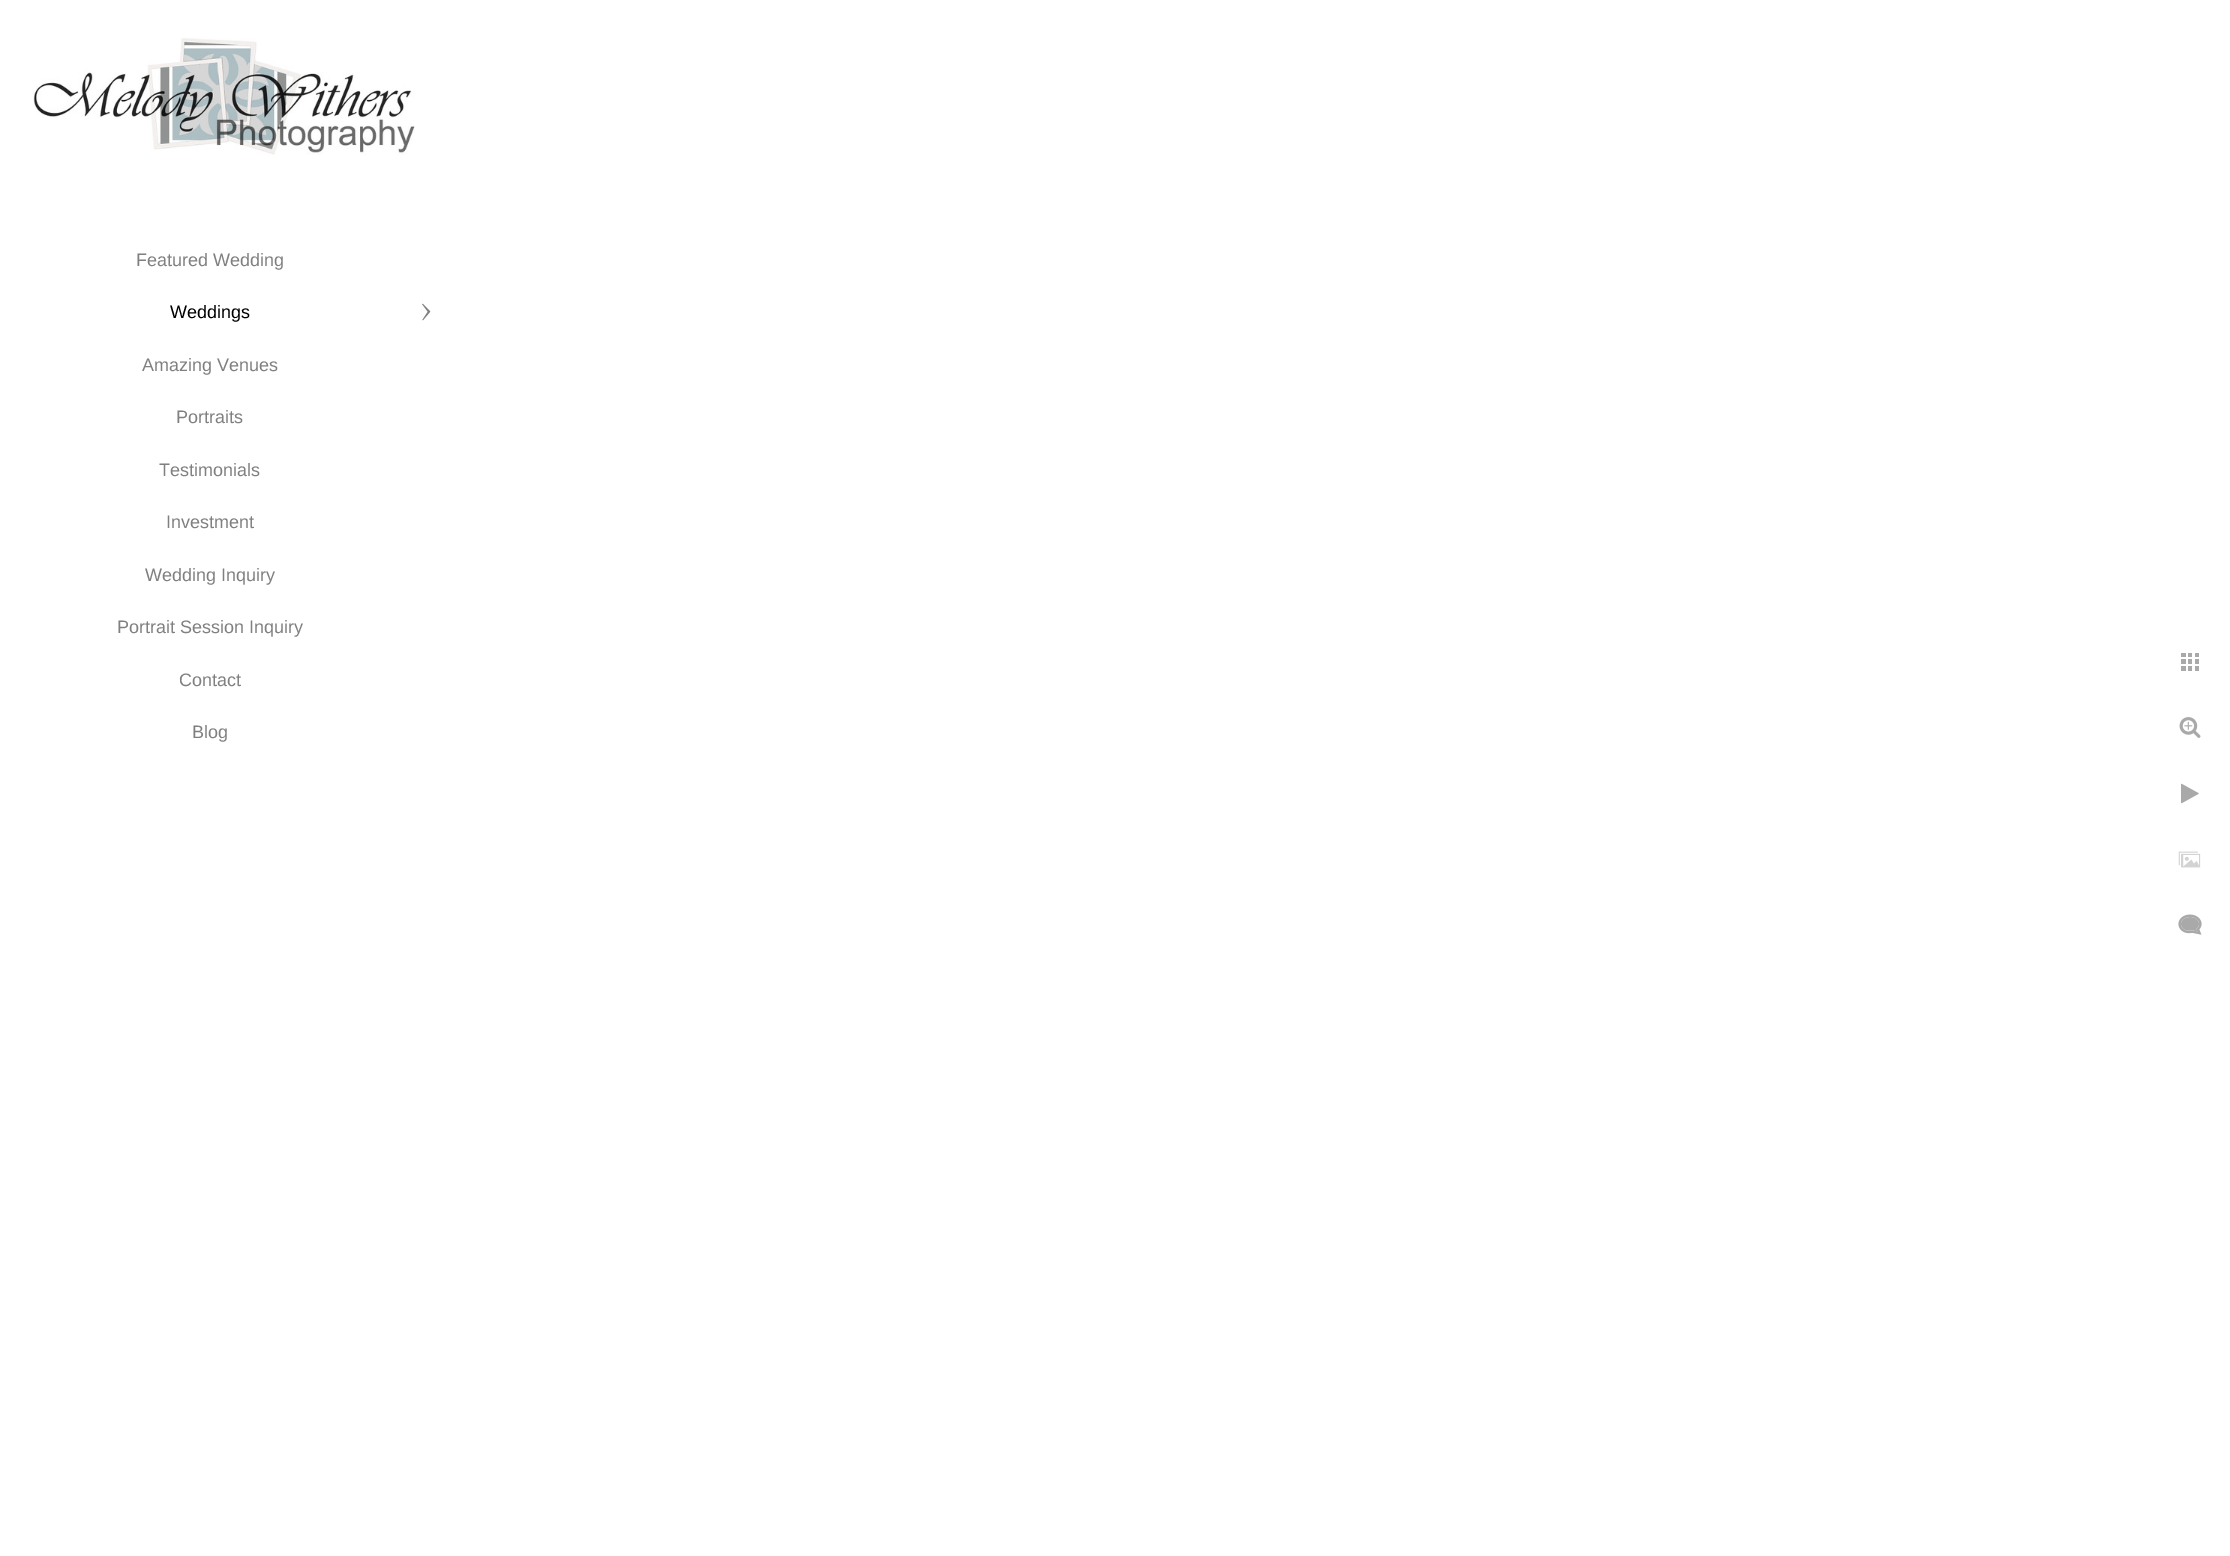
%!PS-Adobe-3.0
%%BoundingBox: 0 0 2230 1556
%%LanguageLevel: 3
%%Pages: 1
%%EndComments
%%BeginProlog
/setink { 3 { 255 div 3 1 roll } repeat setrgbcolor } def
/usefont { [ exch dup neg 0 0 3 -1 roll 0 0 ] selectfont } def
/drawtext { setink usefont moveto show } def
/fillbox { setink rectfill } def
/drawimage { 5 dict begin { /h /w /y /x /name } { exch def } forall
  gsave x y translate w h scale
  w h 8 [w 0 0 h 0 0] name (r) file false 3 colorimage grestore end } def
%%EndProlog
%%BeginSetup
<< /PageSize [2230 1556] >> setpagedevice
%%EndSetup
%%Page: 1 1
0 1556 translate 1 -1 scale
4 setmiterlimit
0 0 2230 1556 255 255 255 fillbox
(assets/img1.rgb) 33 38 382 117 drawimage
(Featured Wedding) 136 266 /LiberationSans-Regular 18 128 128 128 drawtext
(Weddings) 170 318 /LiberationSans-Regular 18 0 0 0 drawtext
(assets/img2.rgb) 422 303 9 18 drawimage
(Amazing Venues) 142 371 /LiberationSans-Regular 18 128 128 128 drawtext
(Portraits) 176 423 /LiberationSans-Regular 18 128 128 128 drawtext
(Testimonials) 159 476 /LiberationSans-Regular 18 128 128 128 drawtext
(Investment) 166 528 /LiberationSans-Regular 18 128 128 128 drawtext
(Wedding Inquiry) 145 581 /LiberationSans-Regular 18 128 128 128 drawtext
(Portrait Session Inquiry) 117 633 /LiberationSans-Regular 18 128 128 128 drawtext
(Contact) 179 686 /LiberationSans-Regular 18 128 128 128 drawtext
(Blog) 192 738 /LiberationSans-Regular 18 128 128 128 drawtext
(assets/img3.rgb) 2181 653 18 18 drawimage
(assets/img4.rgb) 2179 717 22 21 drawimage
(assets/img5.rgb) 2181 783 18 21 drawimage
(assets/img6.rgb) 2178 851 23 17 drawimage
(assets/img7.rgb) 2178 914 24 21 drawimage
showpage
%%EOF
